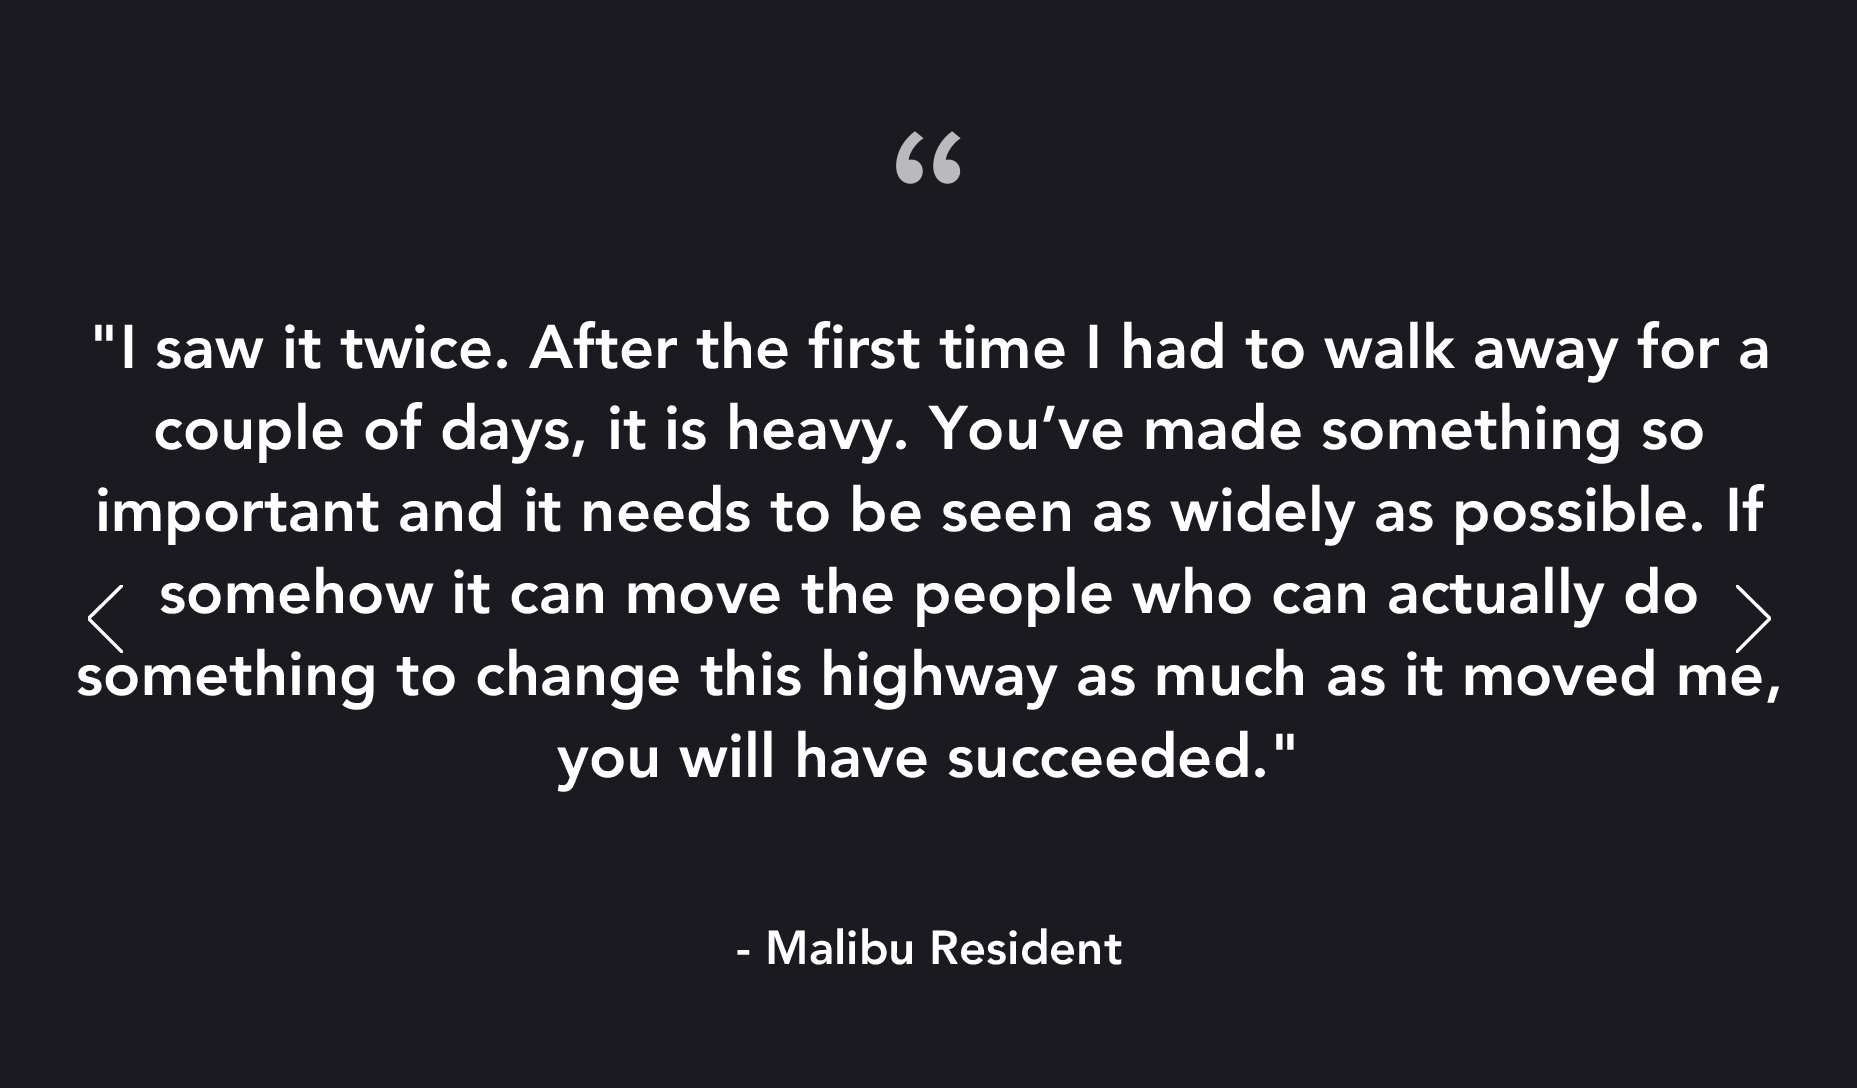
%!PS-Adobe-3.0
%%BoundingBox: 0 0 1857 1088
%%LanguageLevel: 3
%%Pages: 1
%%EndComments
%%BeginProlog
/setink { 3 { 255 div 3 1 roll } repeat setrgbcolor } def
/usefont { [ exch dup neg 0 0 3 -1 roll 0 0 ] selectfont } def
/drawtext { setink usefont moveto show } def
/fillbox { setink rectfill } def
/drawimage { 5 dict begin { /h /w /y /x /name } { exch def } forall
  gsave x y translate w h scale
  w h 8 [w 0 0 h 0 0] name (r) file false 3 colorimage grestore end } def
%%EndProlog
%%BeginSetup
<< /PageSize [1857 1088] >> setpagedevice
%%EndSetup
%%Page: 1 1
0 1088 translate 1 -1 scale
4 setmiterlimit
0 0 1857 1088 27 26 33 fillbox
(assets/img1.rgb) 896 131 65 53 drawimage
("I saw it twice. After the first time I had to walk away for a) 88 368 /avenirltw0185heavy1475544-Black 61.25 255 255 255 drawtext
(couple of days, it is heavy. You’ve made something so) 153 449 /avenirltw0185heavy1475544-Black 61.25 255 255 255 drawtext
(important and it needs to be seen as widely as possible. If) 95 531 /avenirltw0185heavy1475544-Black 61.25 255 255 255 drawtext
(somehow it can move the people who can actually do) 159 613 /avenirltw0185heavy1475544-Black 61.25 255 255 255 drawtext
(something to change this highway as much as it moved me,) 76 695 /avenirltw0185heavy1475544-Black 61.25 255 255 255 drawtext
(you will have succeeded.") 557 777 /avenirltw0185heavy1475544-Black 61.25 255 255 255 drawtext
(- Malibu Resident) 736 964 /avenirltw0185heavy1475544-Black 47.25 255 255 255 drawtext
gsave
88 585 35 68 rectclip
1.7 setlinewidth
121.5 652.5 moveto 87.5 618.5 lineto 121.5 585 lineto 122.5 586 lineto 89.5 618.5 lineto 122.5 651.5 lineto closepath stroke
grestore
gsave
1736 585 35 68 rectclip
1.7 setlinewidth
1737 652.5 moveto 1771 618.5 lineto 1737 585 lineto 1736 586 lineto 1769 618.5 lineto 1736 651.5 lineto closepath stroke
grestore
showpage
%%EOF
